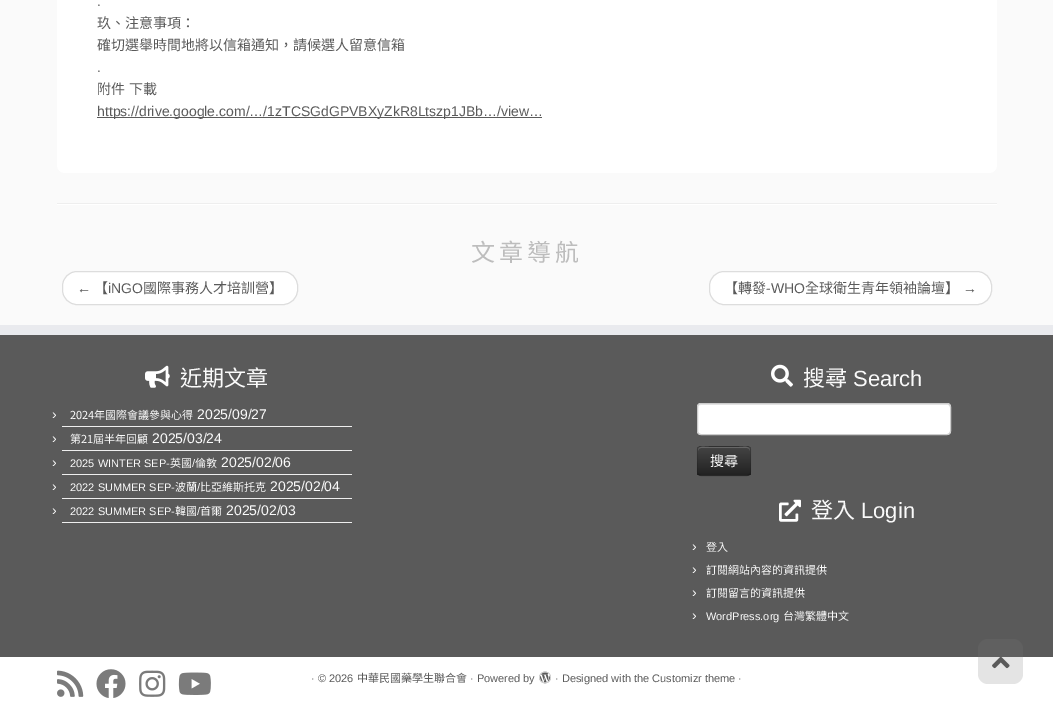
%!PS-Adobe-3.0
%%BoundingBox: 0 0 1053 709
%%LanguageLevel: 3
%%Pages: 1
%%EndComments
%%BeginProlog
/setink { 3 { 255 div 3 1 roll } repeat setrgbcolor } def
/usefont { [ exch dup neg 0 0 3 -1 roll 0 0 ] selectfont } def
/drawtext { setink usefont moveto show } def
/fillbox { setink rectfill } def
/setalpha { dup .setfillconstantalpha .setstrokeconstantalpha } def
/rrect { 5 dict begin { /r /h /w /y /x } { exch def } forall
  x r add y moveto x w add y 2 copy h add r arct x w add y h add x 1 index r arct
  x y h add x y r arct x y 2 copy exch w add exch r arct closepath end } def
/drawimage { 5 dict begin { /h /w /y /x /name } { exch def } forall
  gsave x y translate w h scale
  w h 8 [w 0 0 h 0 0] name (r) file false 3 colorimage grestore end } def
%%EndProlog
%%BeginSetup
<< /PageSize [1053 709] /PageUsesTransparency true >> setpagedevice
%%EndSetup
%%Page: 1 1
0 .pushpdf14devicefilter
0 709 translate 1 -1 scale
4 setmiterlimit
0 0 1053 709 250 250 250 fillbox
255 255 255 setink
57 -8 940 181 8 rrect fill
(.) 97 6 /LiberationSans-Regular 14 90 90 90 drawtext
(玖、注意事項：) 97 28 /NotoSansTC-Regular 14 90 90 90 drawtext
(確切選舉時間地將以信箱通知，請候選人留意信箱) 97 50 /NotoSansTC-Regular 14 90 90 90 drawtext
(.) 97 72 /LiberationSans-Regular 14 90 90 90 drawtext
/NotoSansTC-Regular 14 usefont
97 94 moveto 1 0 32 (附件 下載) widthshow
97 117 445 1 90 90 90 fillbox
(https://drive.google.com/…/1zTCSGdGPVBXyZkR8Ltszp1JBb…/view…) 97 116 /LiberationSans-Regular 14 90 90 90 drawtext
57 203 940 1 238 238 238 fillbox
57 204 940 1 255 255 255 fillbox
/NotoSansTC-Regular 24 usefont
189 189 189 setink
471 261 moveto 4 0 (文章導航) ashow
255 255 255 setink
62.5 271.5 235 33 14.5 rrect gsave fill grestore
221 221 221 setink
stroke
(←) 77 293 /LiberationSans-Regular 14 90 90 90 drawtext
(【) 94 293 /NotoSansTC-Regular 14 90 90 90 drawtext
(iNGO) 108 293 /LiberationSans-Regular 14 90 90 90 drawtext
(國際事務人才培訓營】) 143 293 /NotoSansTC-Regular 14 90 90 90 drawtext
255 255 255 setink
709.5 271.5 282 33 14.5 rrect gsave fill grestore
221 221 221 setink
stroke
(【轉發) 724 293 /NotoSansTC-Regular 14 90 90 90 drawtext
(-WHO) 766 293 /LiberationSans-Regular 14 90 90 90 drawtext
(全球衛生青年領袖論壇】) 805 293 /NotoSansTC-Regular 14 90 90 90 drawtext
(→) 963 293 /LiberationSans-Regular 14 90 90 90 drawtext
0 335 1053 322 90 90 90 fillbox
0 325 1053 10 233 234 238 fillbox
(assets/img1.rgb) 145 365 25 23 drawimage
(近期文章) 180 386 /NotoSansTC-Regular 22 250 250 250 drawtext
62 426 290 1 238 238 238 fillbox
(›) 52 419 /LiberationSans-Regular 14 250 250 250 drawtext
(2024年國際會議參與心得) 70 419 /NotoSansTC-Regular 11 250 250 250 drawtext
(2025/09/27) 197 419 /LiberationSans-Regular 14 250 250 250 drawtext
62 450 290 1 238 238 238 fillbox
(›) 52 443 /LiberationSans-Regular 14 250 250 250 drawtext
(第21屆半年回顧) 70 443 /NotoSansTC-Regular 11 250 250 250 drawtext
(2025/03/24) 152 443 /LiberationSans-Regular 14 250 250 250 drawtext
62 474 290 1 238 238 238 fillbox
(›) 52 467 /LiberationSans-Regular 14 250 250 250 drawtext
(2025 WINTER SEP-) 70 467 /LiberationSans-Regular 11 250 250 250 drawtext
(英國) 170 467 /NotoSansTC-Regular 11 250 250 250 drawtext
(/) 192 467 /LiberationSans-Regular 11 250 250 250 drawtext
(倫敦) 195 467 /NotoSansTC-Regular 11 250 250 250 drawtext
(2025/02/06) 221 467 /LiberationSans-Regular 14 250 250 250 drawtext
62 498 290 1 238 238 238 fillbox
(›) 52 491 /LiberationSans-Regular 14 250 250 250 drawtext
(2022 SUMMER SEP-) 70 491 /LiberationSans-Regular 11 250 250 250 drawtext
(波蘭) 175 491 /NotoSansTC-Regular 11 250 250 250 drawtext
(/) 197 491 /LiberationSans-Regular 11 250 250 250 drawtext
(比亞維斯托克) 200 491 /NotoSansTC-Regular 11 250 250 250 drawtext
(2025/02/04) 270 491 /LiberationSans-Regular 14 250 250 250 drawtext
62 522 290 1 238 238 238 fillbox
(›) 52 515 /LiberationSans-Regular 14 250 250 250 drawtext
(2022 SUMMER SEP-) 70 515 /LiberationSans-Regular 11 250 250 250 drawtext
(韓國) 175 515 /NotoSansTC-Regular 11 250 250 250 drawtext
(/) 197 515 /LiberationSans-Regular 11 250 250 250 drawtext
(首爾) 200 515 /NotoSansTC-Regular 11 250 250 250 drawtext
(2025/02/03) 226 515 /LiberationSans-Regular 14 250 250 250 drawtext
(assets/img2.rgb) 771 364 22 23 drawimage
(搜尋) 803 386 /NotoSansTC-Regular 22 250 250 250 drawtext
(Search) 853 386 /LiberationSans-Regular 22 250 250 250 drawtext
255 255 255 setink
697 403 254 32 4 rrect fill
236 236 236 setink
701 405 moveto 948 405 lineto 950 406 lineto 950 408 lineto 950 406 949 404 947 404 curveto 701 404 lineto 699 404 698 406 698 408 curveto 698 406 699 405 701 405 curveto closepath fill
204 204 204 setink
697.5 403.5 253 31 3.5 rrect stroke
54 54 54 setink
697 446 54 30 4 rrect fill
gsave
697 446 54 30 4 rrect clip newpath
gsave 697 447 moveto 751 447 lineto 751 475 lineto 697 475 lineto closepath clip newpath
<< /ShadingType 2 /ColorSpace /DeviceRGB /Coords [724 447 724 475] /Extend [true true] /Function << /FunctionType 2 /Domain [0 1] /C0 [0.267 0.267 0.267] /C1 [0.133 0.133 0.133] /N 1 >> >> shfill grestore
grestore
105 105 105 setink
701 448 moveto 747 448 lineto 749 448 750 449 750 451 curveto 750 445 744 447 739 447 curveto 709 447 lineto 704 447 698 445 698 451 curveto 698 449 699 448 701 448 curveto closepath fill
0.25 setalpha
0 0 0 setink
749.5 474.5 moveto 749 475 748 475.5 747 475.5 curveto 701 475.5 lineto 700 475.5 699 475 698.5 474.5 curveto stroke
0.1 setalpha
698.5 474.5 moveto 696.5 472.5 697.5 464 697.5 461 curveto 697.5 446.5 694.5 446.5 708.5 446.5 curveto 739.5 446.5 lineto 753.5 446.5 750.5 446.5 750.5 461 curveto 750.5 464 751.5 472.5 749.5 474.5 curveto stroke
1 setalpha
(搜尋) 710 466 /NotoSansCJKTC-Regular 14 250 250 250 drawtext
(assets/img3.rgb) 779 499 22 23 drawimage
(登入) 811 518 /NotoSansTC-Regular 22 250 250 250 drawtext
(Login) 861 518 /LiberationSans-Regular 22 250 250 250 drawtext
(›) 692 551 /LiberationSans-Regular 14 250 250 250 drawtext
(登入) 706 551 /NotoSansTC-Regular 11 250 250 250 drawtext
(›) 692 574 /LiberationSans-Regular 14 250 250 250 drawtext
(訂閱網站內容的資訊提供) 706 574 /NotoSansTC-Regular 11 250 250 250 drawtext
(›) 692 597 /LiberationSans-Regular 14 250 250 250 drawtext
(訂閱留言的資訊提供) 706 597 /NotoSansTC-Regular 11 250 250 250 drawtext
(›) 692 620 /LiberationSans-Regular 14 250 250 250 drawtext
(WordPress.org) 706 620 /LiberationSans-Regular 11 250 250 250 drawtext
(台灣繁體中文) 783 620 /NotoSansTC-Regular 11 250 250 250 drawtext
0 657 1053 52 255 255 255 fillbox
(assets/img4.rgb) 57 670 27 27 drawimage
(assets/img5.rgb) 96 669 30 29 drawimage
(assets/img6.rgb) 139 670 27 27 drawimage
(assets/img7.rgb) 178 672 33 23 drawimage
(· © 2026) 311 682 /LiberationSans-Regular 11 90 90 90 drawtext
(中華民國藥學生聯合會) 357 682 /NotoSansTC-Regular 11 90 90 90 drawtext
(· Powered by) 470 682 /LiberationSans-Regular 11 90 90 90 drawtext
(assets/img8.rgb) 539 671 12 13 drawimage
(· Designed with the Customizr theme ·) 555 682 /LiberationSans-Regular 11 90 90 90 drawtext
0.2 setalpha
119 119 119 setink
978 639 45 45 10 rrect fill
1 setalpha
(assets/img9.rgb) 992 657 18 12 drawimage
.poppdf14devicefilter showpage
%%EOF
